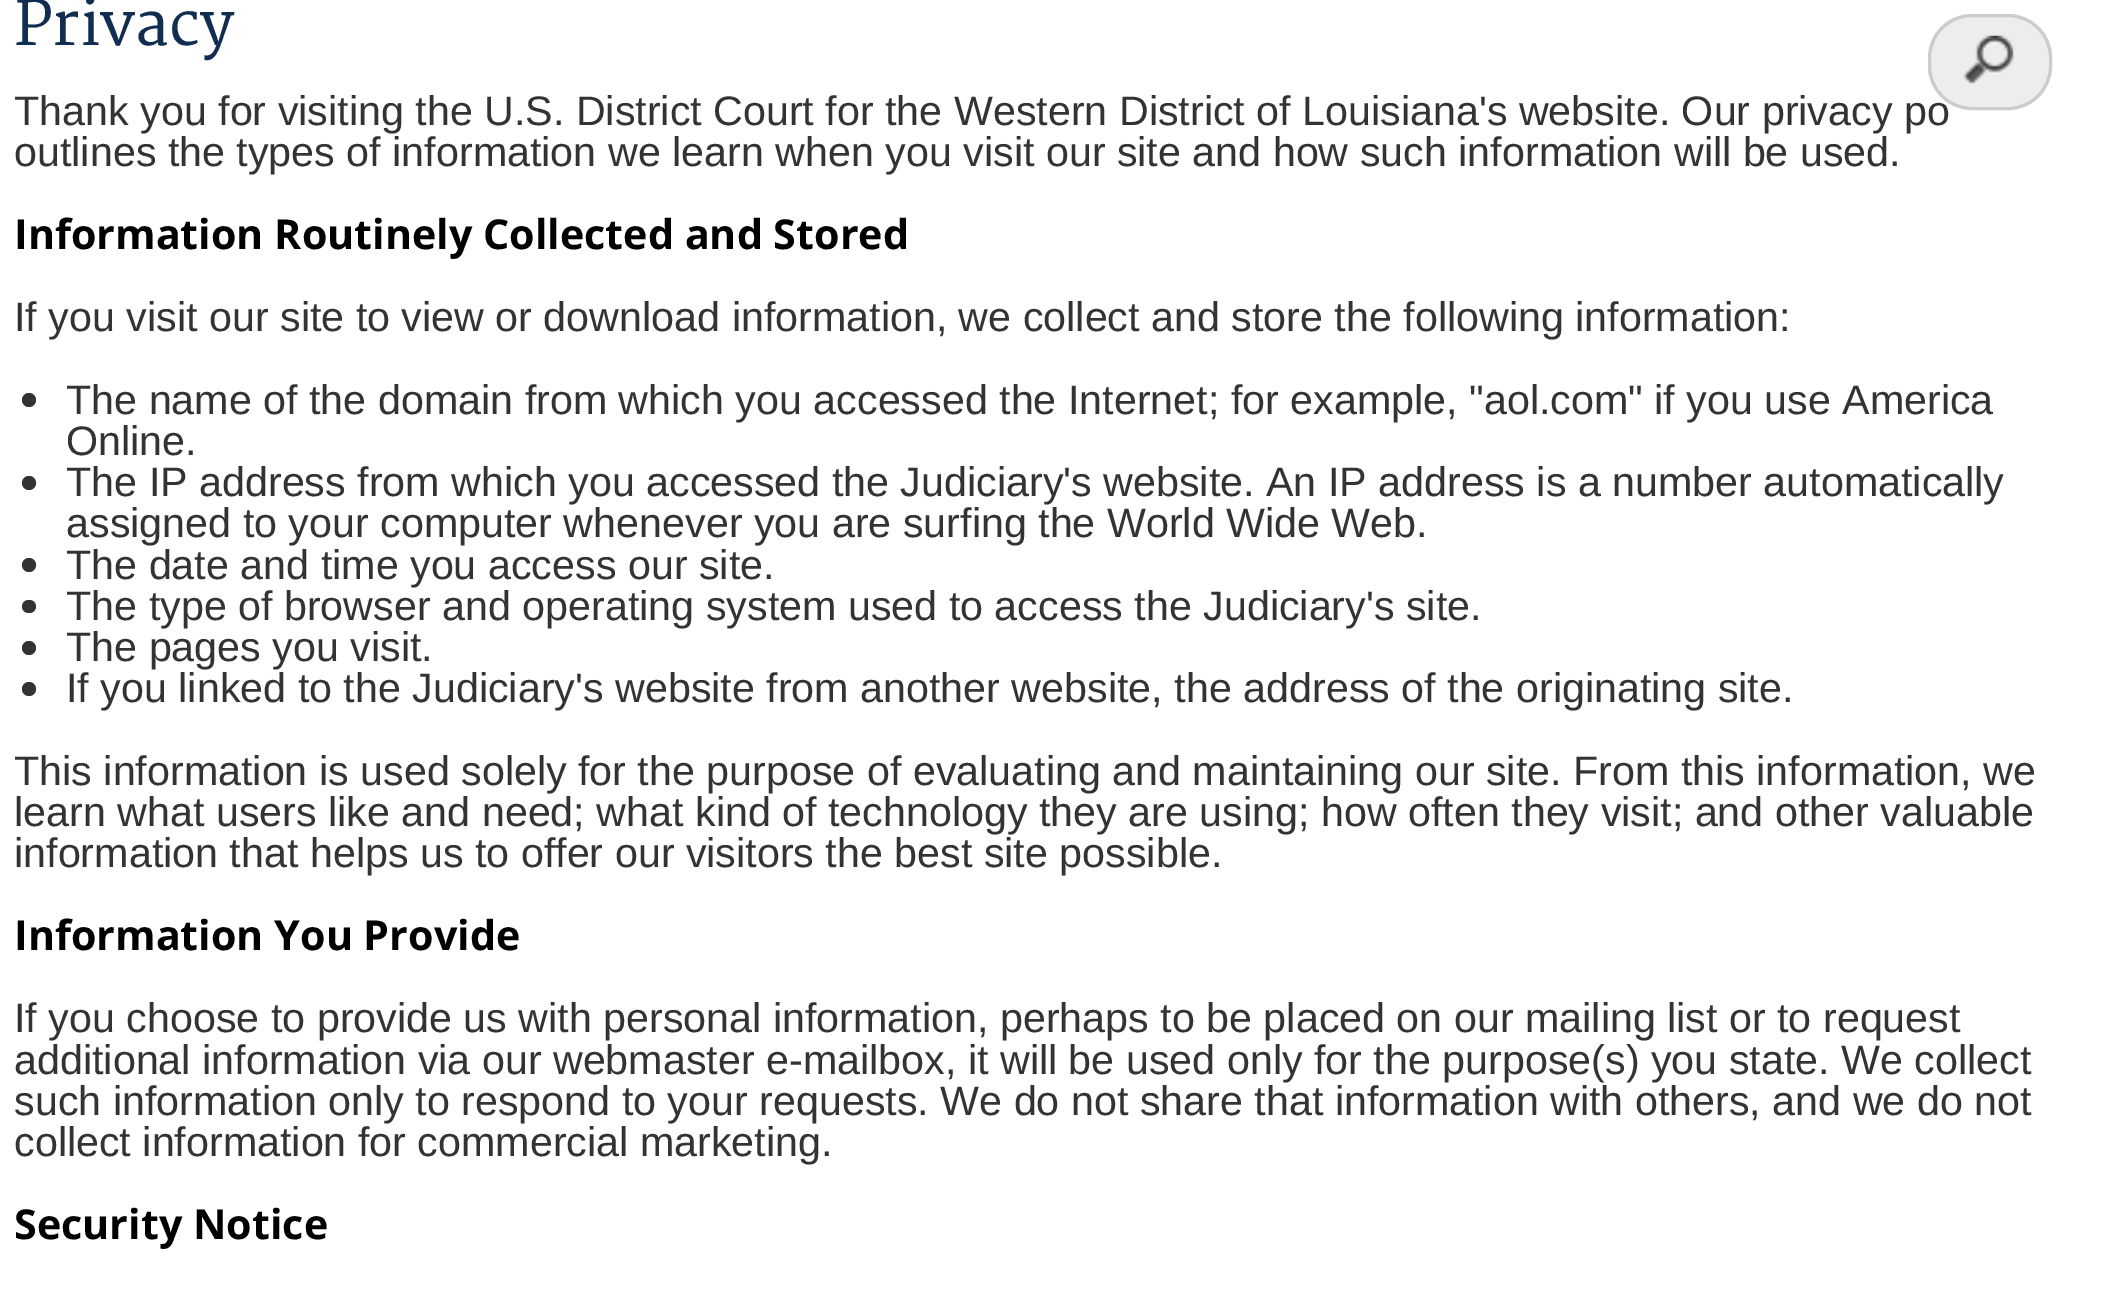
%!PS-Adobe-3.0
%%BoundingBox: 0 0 2106 1305
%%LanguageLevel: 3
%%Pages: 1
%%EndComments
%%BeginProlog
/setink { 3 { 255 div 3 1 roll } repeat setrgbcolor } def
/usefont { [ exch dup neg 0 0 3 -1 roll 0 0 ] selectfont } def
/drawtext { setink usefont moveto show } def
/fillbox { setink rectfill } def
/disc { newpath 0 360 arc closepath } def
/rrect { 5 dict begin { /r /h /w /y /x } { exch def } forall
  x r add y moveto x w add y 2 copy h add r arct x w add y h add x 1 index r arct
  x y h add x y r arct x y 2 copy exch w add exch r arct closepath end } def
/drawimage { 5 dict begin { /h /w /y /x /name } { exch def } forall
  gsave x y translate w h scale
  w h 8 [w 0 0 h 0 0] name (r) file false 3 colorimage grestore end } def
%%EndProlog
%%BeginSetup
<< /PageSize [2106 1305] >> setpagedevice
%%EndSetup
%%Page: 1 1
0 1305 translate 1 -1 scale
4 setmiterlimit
0 0 2106 1305 255 255 255 fillbox
(Privacy) 14 45 /Merriweather-Regular 60.5 17 46 81 drawtext
(Thank you for visiting the U.S. District Court for the Western District of Louisiana's website. Our privacy po) 14 125 /LiberationSans-Regular 41.25 51 51 51 drawtext
(outlines the types of information we learn when you visit our site and how such information will be used.) 14 166 /LiberationSans-Regular 41.25 51 51 51 drawtext
(Information Routinely Collected and Stored) 14 249 /OpenSans-Bold 41.25 0 0 0 drawtext
(If you visit our site to view or download information, we collect and store the following information:) 14 331 /LiberationSans-Regular 41.25 51 51 51 drawtext
29 400 7 disc fill
(The name of the domain from which you accessed the Internet; for example, "aol.com" if you use America) 66 414 /LiberationSans-Regular 41.25 51 51 51 drawtext
(Online.) 66 455 /LiberationSans-Regular 41.25 51 51 51 drawtext
29 483 7 disc fill
(The IP address from which you accessed the Judiciary's website. An IP address is a number automatically) 66 496 /LiberationSans-Regular 41.25 51 51 51 drawtext
(assigned to your computer whenever you are surfing the World Wide Web.) 66 537 /LiberationSans-Regular 41.25 51 51 51 drawtext
29 565 7 disc fill
(The date and time you access our site.) 66 579 /LiberationSans-Regular 41.25 51 51 51 drawtext
22 600 14 13 6.5 rrect fill
(The type of browser and operating system used to access the Judiciary's site.) 66 620 /LiberationSans-Regular 41.25 51 51 51 drawtext
29 648 7 disc fill
(The pages you visit.) 66 661 /LiberationSans-Regular 41.25 51 51 51 drawtext
29 689 7 disc fill
(If you linked to the Judiciary's website from another website, the address of the originating site.) 66 702 /LiberationSans-Regular 41.25 51 51 51 drawtext
(This information is used solely for the purpose of evaluating and maintaining our site. From this information, we) 14 785 /LiberationSans-Regular 41.25 51 51 51 drawtext
(learn what users like and need; what kind of technology they are using; how often they visit; and other valuable) 14 826 /LiberationSans-Regular 41.25 51 51 51 drawtext
(information that helps us to offer our visitors the best site possible.) 14 867 /LiberationSans-Regular 41.25 51 51 51 drawtext
(Information You Provide) 14 950 /OpenSans-Bold 41.25 0 0 0 drawtext
(If you choose to provide us with personal information, perhaps to be placed on our mailing list or to request) 14 1032 /LiberationSans-Regular 41.25 51 51 51 drawtext
(additional information via our webmaster e-mailbox, it will be used only for the purpose\(s\) you state. We collect) 14 1074 /LiberationSans-Regular 41.25 51 51 51 drawtext
(such information only to respond to your requests. We do not share that information with others, and we do not) 14 1115 /LiberationSans-Regular 41.25 51 51 51 drawtext
(collect information for commercial marketing.) 14 1156 /LiberationSans-Regular 41.25 51 51 51 drawtext
(Security Notice) 14 1239 /OpenSans-Bold 41.25 0 0 0 drawtext
237 237 237 setink
1928 14 124 96 44 rrect fill
(assets/img1.rgb) 1963 35 51 50 drawimage
204 204 204 setink
3 setlinewidth
1929.5 15.5 121 93 42.5 rrect stroke
showpage
%%EOF
